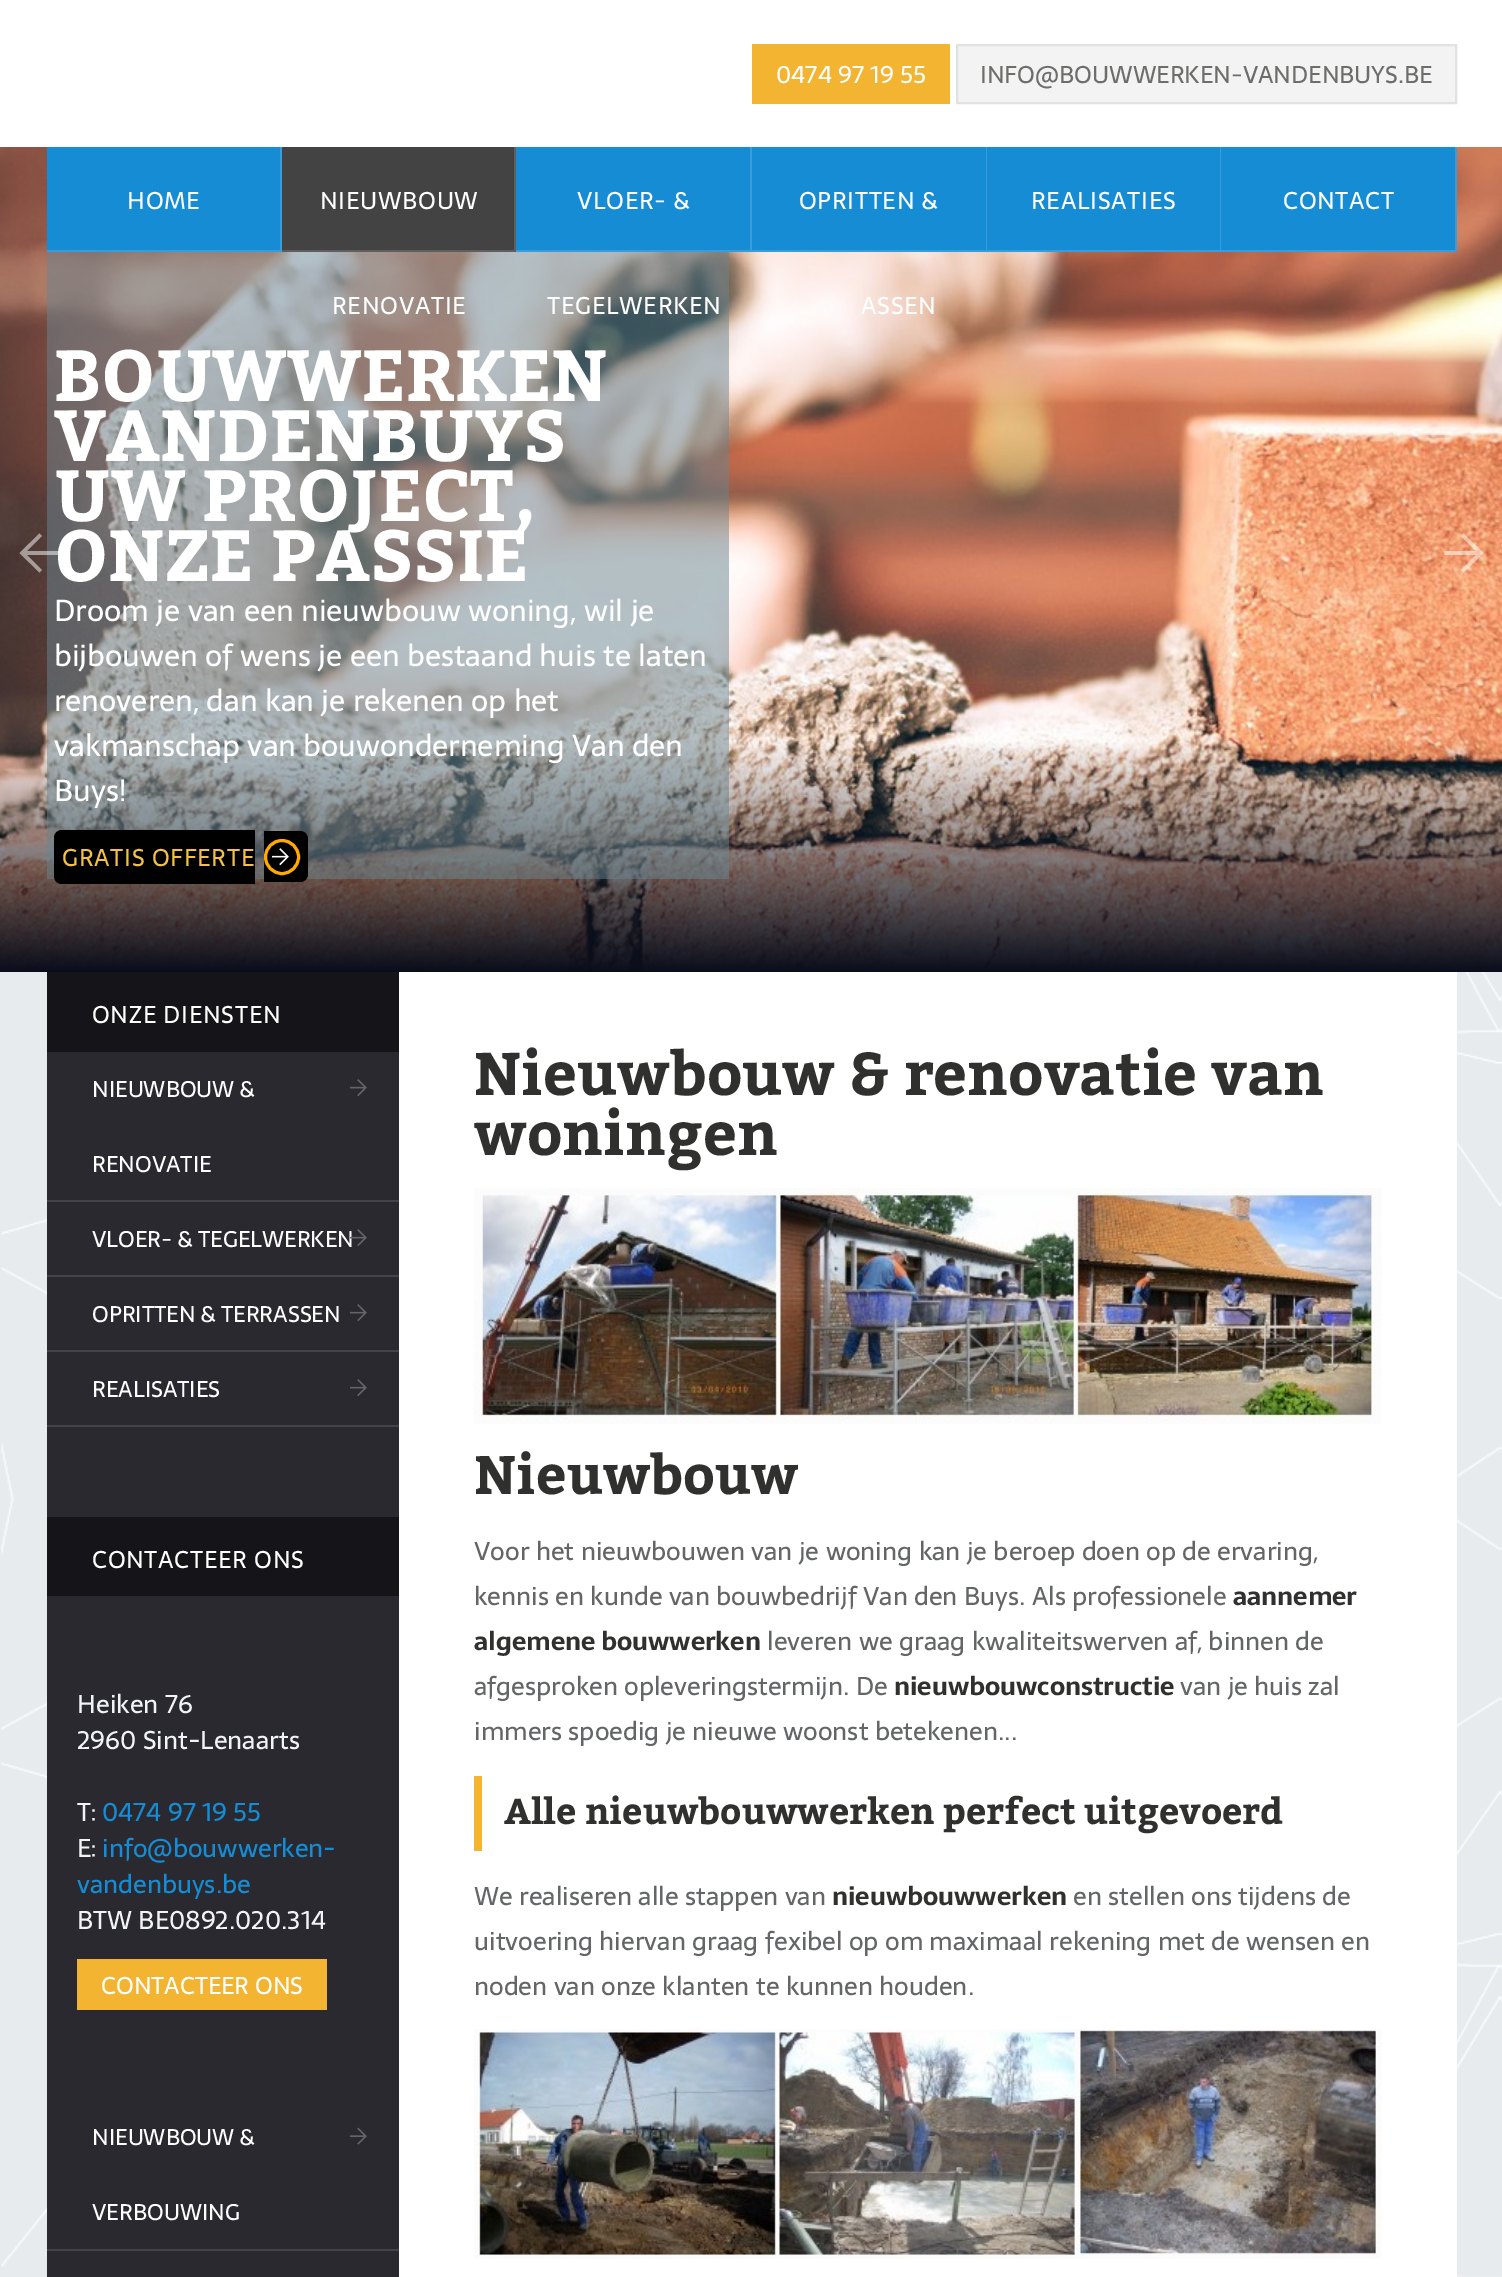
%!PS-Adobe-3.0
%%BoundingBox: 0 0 1502 2277
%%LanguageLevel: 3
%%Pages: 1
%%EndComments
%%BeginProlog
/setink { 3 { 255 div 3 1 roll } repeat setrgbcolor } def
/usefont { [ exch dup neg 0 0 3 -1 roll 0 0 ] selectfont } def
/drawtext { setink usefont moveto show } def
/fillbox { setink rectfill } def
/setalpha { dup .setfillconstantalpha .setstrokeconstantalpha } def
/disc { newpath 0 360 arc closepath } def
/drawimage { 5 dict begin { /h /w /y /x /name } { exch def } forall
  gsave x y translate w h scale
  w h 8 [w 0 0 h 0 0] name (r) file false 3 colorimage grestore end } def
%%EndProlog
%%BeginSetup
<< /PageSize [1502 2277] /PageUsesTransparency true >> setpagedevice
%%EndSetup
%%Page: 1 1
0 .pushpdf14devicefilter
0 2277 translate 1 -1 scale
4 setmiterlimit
0 0 1502 2277 232 235 237 fillbox
(assets/img1.rgb) 1 972 1501 1305 drawimage
0 0 1502 147 255 255 255 fillbox
752 44 198 60 242 180 49 fillbox
(0474 97 19 55) 776 83 /Sarala-Regular 24 255 255 255 drawtext
243 243 243 setink
957 45 moveto 1456 45 lineto 1456 103 lineto 957 103 lineto closepath gsave fill grestore
225 226 226 setink
2 setlinewidth
stroke
(INFO@BOUWWERKEN-VANDENBUYS.BE) 980 83 /Sarala-Regular 24 110 109 108 drawtext
(assets/img2.rgb) 0 147 1502 825 drawimage
47 147 1408 103 21 140 212 fillbox
gsave
47 147 235 105 rectclip
56 157 218 setink
-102 -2 moveto 430 -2 lineto 430 400 lineto -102 400 lineto closepath 45 146 moveto 280 146 lineto 280 250 lineto 45 250 lineto closepath eofill
grestore
255 255 255 setink
127 209 moveto 0.75 0 (HOME) ashow
282 147 232 103 67 67 67 fillbox
gsave
282 147 234 105 rectclip
95 95 95 setink
134 -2 moveto 664 -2 lineto 664 400 lineto 134 400 lineto closepath 280 146 moveto 514 146 lineto 514 250 lineto 280 250 lineto closepath eofill
grestore
255 255 255 setink
320 209 moveto 0.75 0 (NIEUWBOUW) ashow
0.5 setalpha
47 252 682 627 104 133 144 fillbox
1 setalpha
255 255 255 setink
332 314 moveto 0.75 0 (RENOVATIE) ashow
gsave
516 147 236 105 rectclip
56 157 218 setink
368 -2 moveto 900 -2 lineto 900 400 lineto 368 400 lineto closepath 514 146 moveto 750 146 lineto 750 250 lineto 514 250 lineto closepath eofill
grestore
577 209 moveto 0.75 0 (VLOER- &) ashow
547 314 moveto 0.75 0 (TEGELWERKEN) ashow
gsave
752 147 235 105 rectclip
56 157 218 setink
603 -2 moveto 1136 -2 lineto 1136 400 lineto 603 400 lineto closepath 750 146 moveto 986 146 lineto 986 250 lineto 750 250 lineto closepath eofill
grestore
799 209 moveto 0.75 0 (OPRITTEN &) ashow
861 314 moveto 0.75 0 (ASSEN) ashow
gsave
987 147 234 105 rectclip
56 157 218 setink
838 -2 moveto 1370 -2 lineto 1370 400 lineto 838 400 lineto closepath 986 146 moveto 1220 146 lineto 1220 250 lineto 986 250 lineto closepath eofill
grestore
1031 209 moveto 0.75 0 (REALISATIES) ashow
gsave
1221 147 236 105 rectclip
56 157 218 setink
1072 -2 moveto 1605 -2 lineto 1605 400 lineto 1072 400 lineto closepath 1220 146 moveto 1455 146 lineto 1455 250 lineto 1220 250 lineto closepath eofill
grestore
1283 209 moveto 0.75 0 (CONTACT) ashow
(BOUWWERKEN) 54 401 /Kadwa-Bold 72 255 255 255 drawtext
(VANDENBUYS) 54 461 /Kadwa-Bold 72 255 255 255 drawtext
(UW PROJECT,) 54 521 /Kadwa-Bold 72 255 255 255 drawtext
(ONZE PASSIE) 54 581 /Kadwa-Bold 72 255 255 255 drawtext
(Droom je van een nieuwbouw woning, wil je) 54 621 /Sarala-Regular 30 255 255 255 drawtext
(bijbouwen of wens je een bestaand huis te laten) 54 666 /Sarala-Regular 30 255 255 255 drawtext
(renoveren, dan kan je rekenen op het) 54 711 /Sarala-Regular 30 255 255 255 drawtext
(vakmanschap van bouwonderneming Van den) 54 756 /Sarala-Regular 30 255 255 255 drawtext
(Buys!) 54 801 /Sarala-Regular 30 255 255 255 drawtext
0 0 0 setink
62 830 moveto 255 830 lineto 255 884 lineto 62 884 lineto 57.5 884 54 880.5 54 876 curveto 54 838 lineto 54 833.5 57.5 830 62 830 curveto closepath fill
264 831 moveto 300 831 lineto 304.5 831 308 834.5 308 839 curveto 308 874 lineto 308 878.5 304.5 882 300 882 curveto 264 882 lineto closepath fill
/Sarala-Regular 24 usefont
242 192 71 setink
62 866 moveto 0.75 0 (GRATIS OFFERTE) ashow
255 170 0 setink
3 setlinewidth
282 857 16.5 disc stroke
(assets/img3.rgb) 271 848 18 18 drawimage
0.5 setalpha
255 255 255 setink
58.5 551 moveto 58.5 555 lineto 27 555 lineto 42 570 lineto 39.5 572.5 lineto 19.5 553 lineto 39.5 533.5 lineto 42 536 lineto 27 551 lineto closepath fill
1463.5 533.5 moveto 1483.5 553 lineto 1463.5 572.5 lineto 1461 570 lineto 1476 555 lineto 1444.5 555 lineto 1444.5 551 lineto 1476 551 lineto 1461 536 lineto closepath fill
1 setalpha
47 1052 352 1225 41 41 47 fillbox
47 972 352 80 21 21 25 fillbox
255 255 255 setink
92 1023 moveto 0.75 0 (ONZE DIENSTEN) ashow
47 1200 352 2 67 67 72 fillbox
(NIEUWBOUW &) 92 1097 /Sarala-Regular 22.5 255 255 255 drawtext
(assets/img4.rgb) 350 1079 17 17 drawimage
(RENOVATIE) 92 1172 /Sarala-Regular 22.5 255 255 255 drawtext
47 1275 352 2 67 67 72 fillbox
(VLOER- & TEGELWERKEN) 92 1247 /Sarala-Regular 22.5 255 255 255 drawtext
(assets/img5.rgb) 350 1229 17 17 drawimage
47 1350 352 2 67 67 72 fillbox
(OPRITTEN & TERRASSEN) 92 1322 /Sarala-Regular 22.5 255 255 255 drawtext
(assets/img4.rgb) 350 1304 17 17 drawimage
47 1425 352 2 67 67 72 fillbox
(REALISATIES) 92 1397 /Sarala-Regular 22.5 255 255 255 drawtext
(assets/img4.rgb) 350 1379 17 17 drawimage
47 1517 352 79 21 21 25 fillbox
/Sarala-Regular 24 usefont
255 255 255 setink
92 1568 moveto 0.75 0 (CONTACTEER ONS) ashow
(Heiken 76) 77 1713 /Sarala-Regular 25.5 241 243 245 drawtext
(2960 Sint-Lenaarts) 77 1749 /Sarala-Regular 25.5 241 243 245 drawtext
(T:) 77 1821 /Sarala-Regular 25.5 241 243 245 drawtext
(0474 97 19 55) 102 1821 /Sarala-Regular 25.5 21 140 212 drawtext
(E:) 77 1857 /Sarala-Regular 25.5 241 243 245 drawtext
(info@bouwwerken-) 102 1857 /Sarala-Regular 25.5 21 140 212 drawtext
(vandenbuys.be) 77 1893 /Sarala-Regular 25.5 21 140 212 drawtext
(BTW BE0892.020.314) 77 1929 /Sarala-Regular 25.5 241 243 245 drawtext
77 1959 250 51 242 180 49 fillbox
(CONTACTEER ONS) 101 1994 /Sarala-Regular 24 255 255 255 drawtext
47 2249 352 2 67 67 72 fillbox
(NIEUWBOUW &) 92 2145 /Sarala-Regular 22.5 255 255 255 drawtext
(assets/img6.rgb) 350 2127 17 18 drawimage
(VERBOUWING) 92 2220 /Sarala-Regular 22.5 255 255 255 drawtext
399 972 1058 1305 255 255 255 fillbox
(Nieuwbouw & renovatie van) 474 1095 /Kadwa-Bold 60 48 48 47 drawtext
(woningen) 474 1155 /Kadwa-Bold 60 48 48 47 drawtext
(assets/img7.rgb) 474 1188 908 236 drawimage
(Nieuwbouw) 474 1494 /Kadwa-Bold 54 48 48 47 drawtext
(Voor het nieuwbouwen van je woning kan je beroep doen op de ervaring,) 474 1560 /Sarala-Regular 25.5 100 101 102 drawtext
(kennis en kunde van bouwbedrijf Van den Buys. Als professionele) 474 1605 /Sarala-Regular 25.5 100 101 102 drawtext
(aannemer) 1233 1605 /Sarala-Bold 25.5 48 48 47 drawtext
(algemene bouwwerken) 474 1650 /Sarala-Bold 25.5 48 48 47 drawtext
(leveren we graag kwaliteitswerven af, binnen de) 767 1650 /Sarala-Regular 25.5 100 101 102 drawtext
(afgesproken opleveringstermijn. De) 474 1695 /Sarala-Regular 25.5 100 101 102 drawtext
(nieuwbouwconstructie) 894 1695 /Sarala-Bold 25.5 48 48 47 drawtext
(van je huis zal) 1180 1695 /Sarala-Regular 25.5 100 101 102 drawtext
(immers spoedig je nieuwe woonst betekenen...) 474 1740 /Sarala-Regular 25.5 100 101 102 drawtext
474 1776 8 75 242 180 49 fillbox
(Alle nieuwbouwwerken perfect uitgevoerd) 504 1824 /Kadwa-Bold 36 48 48 47 drawtext
(We realiseren alle stappen van) 474 1905 /Sarala-Regular 25.5 100 101 102 drawtext
(nieuwbouwwerken) 832 1905 /Sarala-Bold 25.5 48 48 47 drawtext
(en stellen ons tijdens de) 1073 1905 /Sarala-Regular 25.5 100 101 102 drawtext
(uitvoering hiervan graag fexibel op om maximaal rekening met de wensen en) 474 1950 /Sarala-Regular 25.5 100 101 102 drawtext
(noden van onze klanten te kunnen houden.) 474 1995 /Sarala-Regular 25.5 100 101 102 drawtext
(assets/img8.rgb) 474 2029 908 230 drawimage
.poppdf14devicefilter showpage
%%EOF
